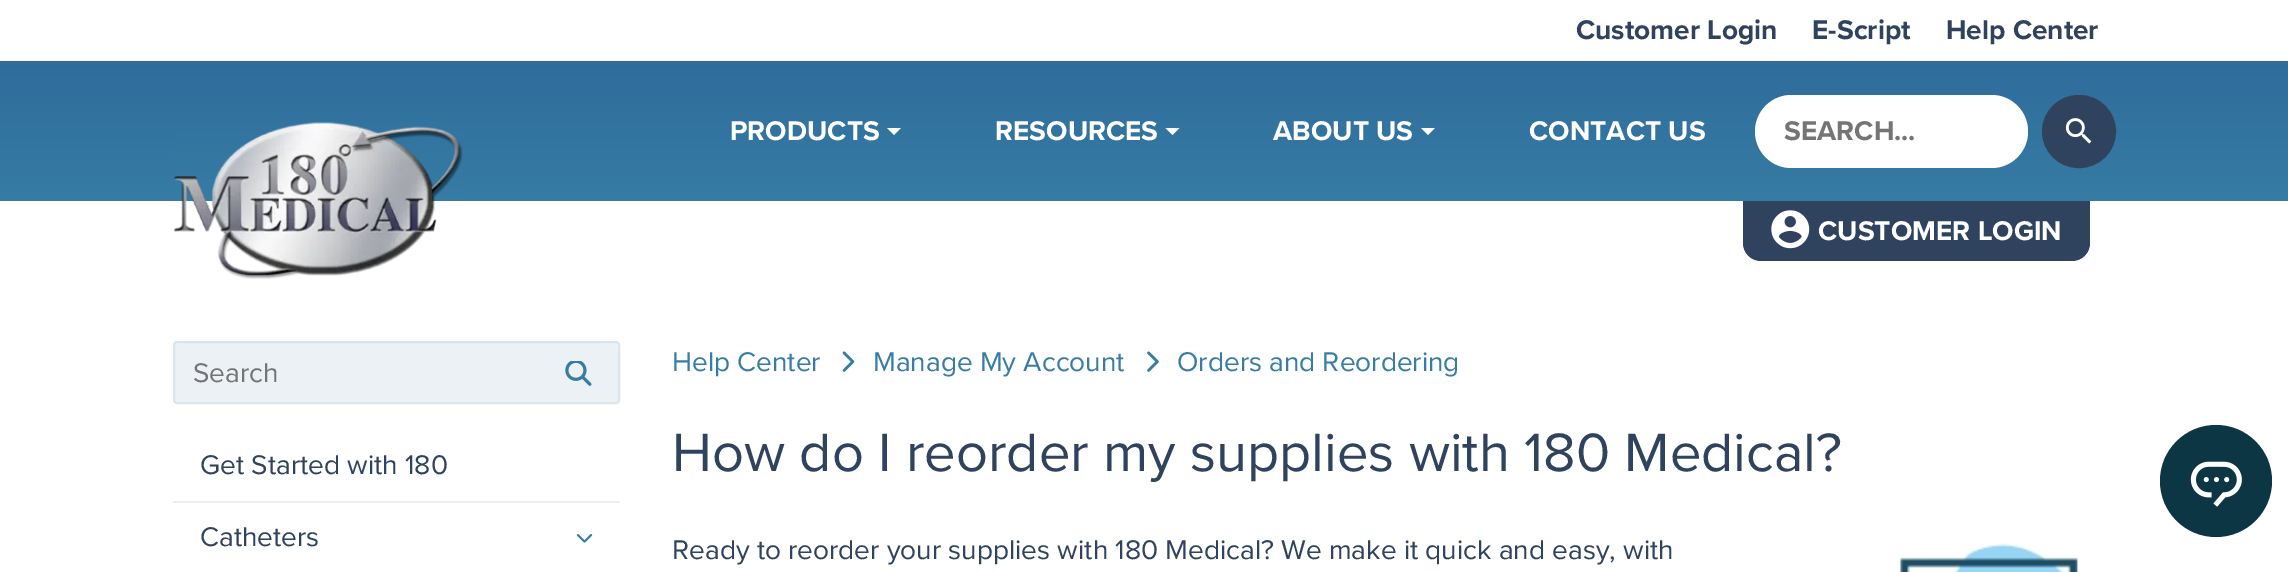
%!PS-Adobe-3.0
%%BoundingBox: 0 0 2288 572
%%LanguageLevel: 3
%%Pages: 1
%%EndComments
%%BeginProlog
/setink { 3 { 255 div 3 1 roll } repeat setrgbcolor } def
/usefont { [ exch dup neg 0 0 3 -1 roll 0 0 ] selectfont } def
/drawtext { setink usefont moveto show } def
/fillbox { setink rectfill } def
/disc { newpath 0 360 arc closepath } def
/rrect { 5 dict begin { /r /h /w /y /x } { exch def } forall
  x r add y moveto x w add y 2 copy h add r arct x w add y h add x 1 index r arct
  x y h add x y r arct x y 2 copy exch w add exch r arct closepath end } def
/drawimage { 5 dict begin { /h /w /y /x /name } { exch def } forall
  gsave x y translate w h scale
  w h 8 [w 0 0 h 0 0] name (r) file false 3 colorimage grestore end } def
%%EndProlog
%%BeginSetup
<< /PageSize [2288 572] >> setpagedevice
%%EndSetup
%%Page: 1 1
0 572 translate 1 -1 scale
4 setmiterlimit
0 0 2288 572 255 255 255 fillbox
(Customer Login) 1576 39 /ProximaNova-Bold 28 48 67 94 drawtext
(E-Script) 1812 39 /ProximaNova-Bold 28 48 67 94 drawtext
(Help Center) 1946 39 /ProximaNova-Bold 28 48 67 94 drawtext
gsave 0 61 moveto 2288 61 lineto 2288 201 lineto 0 201 lineto closepath clip newpath
<< /ShadingType 2 /ColorSpace /DeviceRGB /Coords [1145 201 1145 61] /Extend [true true] /Function << /FunctionType 2 /Domain [0 1] /C0 [0.212 0.486 0.643] /C1 [0.184 0.424 0.612] /N 1 >> >> shfill grestore
(assets/img1.rgb) 174 122 289 157 drawimage
(PRODUCTS) 730 140 /ProximaNova-Bold 28 255 255 255 drawtext
887 128 moveto 901 128 lineto 894 135 lineto closepath fill
(RESOURCES) 995 140 /ProximaNova-Bold 28 255 255 255 drawtext
1165.5 128 moveto 1179.5 128 lineto 1172.5 135 lineto closepath fill
(ABOUT US) 1273 140 /ProximaNova-Bold 28 255 255 255 drawtext
1421 128 moveto 1435 128 lineto 1428 135 lineto closepath fill
(CONTACT US) 1529 140 /ProximaNova-Bold 28 255 255 255 drawtext
1755 95 273 73 36.5 rrect fill
(SEARCH...) 1784 140 /ProximaNova-Bold 28 117 117 117 drawtext
48 67 94 setink
2043 96 72 71 35.5 rrect gsave fill grestore
2 setlinewidth
stroke
(assets/img2.rgb) 2065 118 27 26 drawimage
1743 201 moveto 2090 201 lineto 2090 243 lineto 2090 253 2082 261 2072 261 curveto 1761 261 lineto 1751 261 1743 253 1743 243 curveto closepath fill
(assets/img3.rgb) 1771 210 39 39 drawimage
(CUSTOMER LOGIN) 1818 240 /ProximaNova-Bold 28 255 255 255 drawtext
236 241 245 setink
174 342 445 61 3 rrect gsave fill grestore
219 229 236 setink
stroke
(Search) 193 382 /ProximaNova-Regular 28 117 117 117 drawtext
(assets/img4.rgb) 565 361 27 25 drawimage
173 501 447 2 238 238 238 fillbox
(Get Started with 180) 200 474 /ProximaNova-Regular 28 48 67 94 drawtext
(Catheters) 200 546 /ProximaNova-Regular 28 48 67 94 drawtext
(assets/img5.rgb) 576 534 17 9 drawimage
(Help Center) 672 371 /ProximaNova-Regular 28 54 124 164 drawtext
(assets/img6.rgb) 842 351 13 21 drawimage
(Manage My Account) 873 371 /ProximaNova-Regular 28 54 124 164 drawtext
(assets/img7.rgb) 1147 351 12 21 drawimage
(Orders and Reordering) 1177 371 /ProximaNova-Regular 28 54 124 164 drawtext
(How do I reorder my supplies with 180 Medical?) 672 471 /ProximaNova-Regular 56 48 67 94 drawtext
(Ready to reorder your supplies with 180 Medical? We make it quick and easy, with) 672 559 /ProximaNova-Regular 28 48 67 94 drawtext
(assets/img8.rgb) 1899 542 181 30 drawimage
13 54 68 setink
2216 481 56 disc fill
(assets/img9.rgb) 2190 461 52 46 drawimage
showpage
%%EOF
